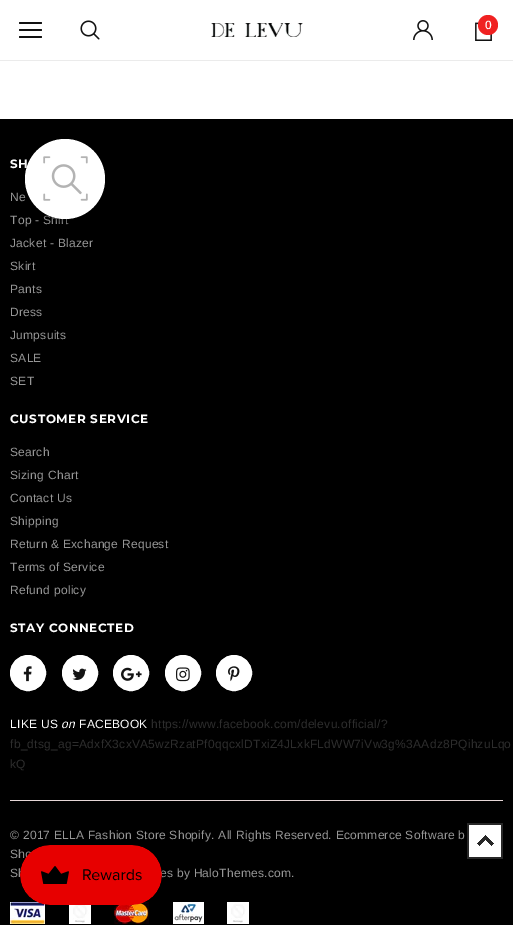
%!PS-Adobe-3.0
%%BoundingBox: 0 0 513 925
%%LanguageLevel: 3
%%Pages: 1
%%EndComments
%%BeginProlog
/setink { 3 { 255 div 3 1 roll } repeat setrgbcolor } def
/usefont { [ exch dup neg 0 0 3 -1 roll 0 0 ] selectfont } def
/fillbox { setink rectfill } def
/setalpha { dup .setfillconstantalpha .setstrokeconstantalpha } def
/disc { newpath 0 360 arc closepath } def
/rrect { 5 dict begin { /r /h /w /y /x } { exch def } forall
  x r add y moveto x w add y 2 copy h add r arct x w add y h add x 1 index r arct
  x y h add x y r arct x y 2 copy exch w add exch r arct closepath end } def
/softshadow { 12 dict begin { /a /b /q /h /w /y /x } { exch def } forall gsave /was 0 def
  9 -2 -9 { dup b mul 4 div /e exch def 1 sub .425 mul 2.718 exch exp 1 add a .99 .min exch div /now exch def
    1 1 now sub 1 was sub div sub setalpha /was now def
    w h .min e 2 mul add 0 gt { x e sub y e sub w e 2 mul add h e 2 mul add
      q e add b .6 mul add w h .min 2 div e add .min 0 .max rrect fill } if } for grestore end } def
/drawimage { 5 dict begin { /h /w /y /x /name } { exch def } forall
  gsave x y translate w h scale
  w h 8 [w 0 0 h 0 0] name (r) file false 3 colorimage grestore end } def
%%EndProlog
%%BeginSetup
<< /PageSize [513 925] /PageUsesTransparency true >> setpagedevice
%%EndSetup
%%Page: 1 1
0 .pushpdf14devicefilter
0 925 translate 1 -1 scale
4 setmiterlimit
0 0 513 925 255 255 255 fillbox
0 60 513 1 235 235 235 fillbox
18 18 18 setink
19 29 23 2 1 rrect fill
19 22 23 2 1 rrect fill
19 36 23 2 1 rrect fill
(assets/img1.rgb) 80 20 20 20 drawimage
(assets/img2.rgb) 211 23 92 14 drawimage
(assets/img3.rgb) 413 20 20 20 drawimage
(assets/img4.rgb) 475 20 17 21 drawimage
240 33 33 setink
488 25 10 disc fill
/Arimo-Medium 12 usefont
255 255 255 setink
485 29 moveto 0.25 0 (0) ashow
0 119 513 806 0 0 0 fillbox
/Montserrat-Bold 12 usefont
255 255 255 setink
10 168 moveto 0.6 0 (SH) ashow
/Arimo-Regular 12 usefont
150 150 150 setink
10 201 moveto 0.25 0 (Ne) ashow
10 224 moveto 0.25 0 (Top - Shirt) ashow
10 247 moveto 0.25 0 (Jacket - Blazer) ashow
10 270 moveto 0.25 0 (Skirt) ashow
10 293 moveto 0.25 0 (Pants) ashow
10 316 moveto 0.25 0 (Dress) ashow
10 339 moveto 0.25 0 (Jumpsuits) ashow
10 362 moveto 0.25 0 (SALE) ashow
10 385 moveto 0.25 0 (SET) ashow
/Montserrat-Bold 12 usefont
255 255 255 setink
10 423 moveto 0.6 0 (CUSTOMER SERVICE) ashow
/Arimo-Regular 12 usefont
150 150 150 setink
10 456 moveto 0.25 0 (Search) ashow
10 479 moveto 0.25 0 (Sizing Chart) ashow
10 502 moveto 0.25 0 (Contact Us) ashow
10 525 moveto 0.25 0 (Shipping) ashow
10 548 moveto 0.25 0 (Return & Exchange Request) ashow
10 571 moveto 0.25 0 (Terms of Service) ashow
10 594 moveto 0.25 0 (Refund policy) ashow
/Montserrat-Bold 12 usefont
255 255 255 setink
10 632 moveto 0.6 0 (STAY CONNECTED) ashow
28 673 17.5 disc gsave fill grestore
stroke
(assets/img5.rgb) 23 666 9 16 drawimage
80 673 17.5 disc gsave fill grestore
stroke
(assets/img6.rgb) 72 668 15 12 drawimage
131 673 17.5 disc gsave fill grestore
stroke
(assets/img7.rgb) 121 667 21 14 drawimage
183 673 17.5 disc gsave fill grestore
stroke
(assets/img8.rgb) 176 667 14 15 drawimage
234 673 17.5 disc gsave fill grestore
stroke
(assets/img9.rgb) 228 666 12 16 drawimage
/Arimo-Regular 12 usefont
10 728 moveto 0.25 0 (LIKE US) ashow
/Arimo-Italic 12 usefont
61 728 moveto 0.25 0 (on) ashow
/Arimo-Regular 12 usefont
79 728 moveto 0.25 0 (FACEBOOK) ashow
45 45 45 setink
151 728 moveto 0.25 0 (https://www.facebook.com/delevu.official/?) ashow
10 748 moveto 0.25 0 (fb_dtsg_ag=AdxfX3cxVA5wzRzatPf0qqcxlDTxiZ4JLxkFLdWW7iVw3g%3AAdz8PQihzuLqo) ashow
10 768 moveto 0.25 0 (kQ) ashow
10 800 493 1 230 215 215 fillbox
150 150 150 setink
10 839 moveto 0.25 0 (© 2017 ELLA Fashion Store Shopify. All Rights Reserved. Ecommerce Software b) ashow
10 858 moveto 0.25 0 (Sho) ashow
10 877 moveto 0.25 0 (Sh) ashow
160 877 moveto 0.25 0 (es by HaloThemes.com.) ashow
(assets/img10.rgb) 10 902 35 22 drawimage
(assets/img11.rgb) 69 905 22 19 drawimage
(assets/img12.rgb) 114 902 35 22 drawimage
(assets/img13.rgb) 173 902 31 22 drawimage
(assets/img14.rgb) 227 902 22 22 drawimage
469 825 32 32 255 255 255 fillbox
(assets/img15.rgb) 467 823 36 36 drawimage
0 0 0 setink
22 139 86 86 43 1.5 0.12 softshadow
28 142 80 80 40 1.5 0.3 softshadow
255 255 255 setink
65 179 40 disc fill
(assets/img16.rgb) 43 156 45 45 drawimage
(assets/img17.rgb) 20 845 142 60 drawimage
.poppdf14devicefilter showpage
%%EOF
